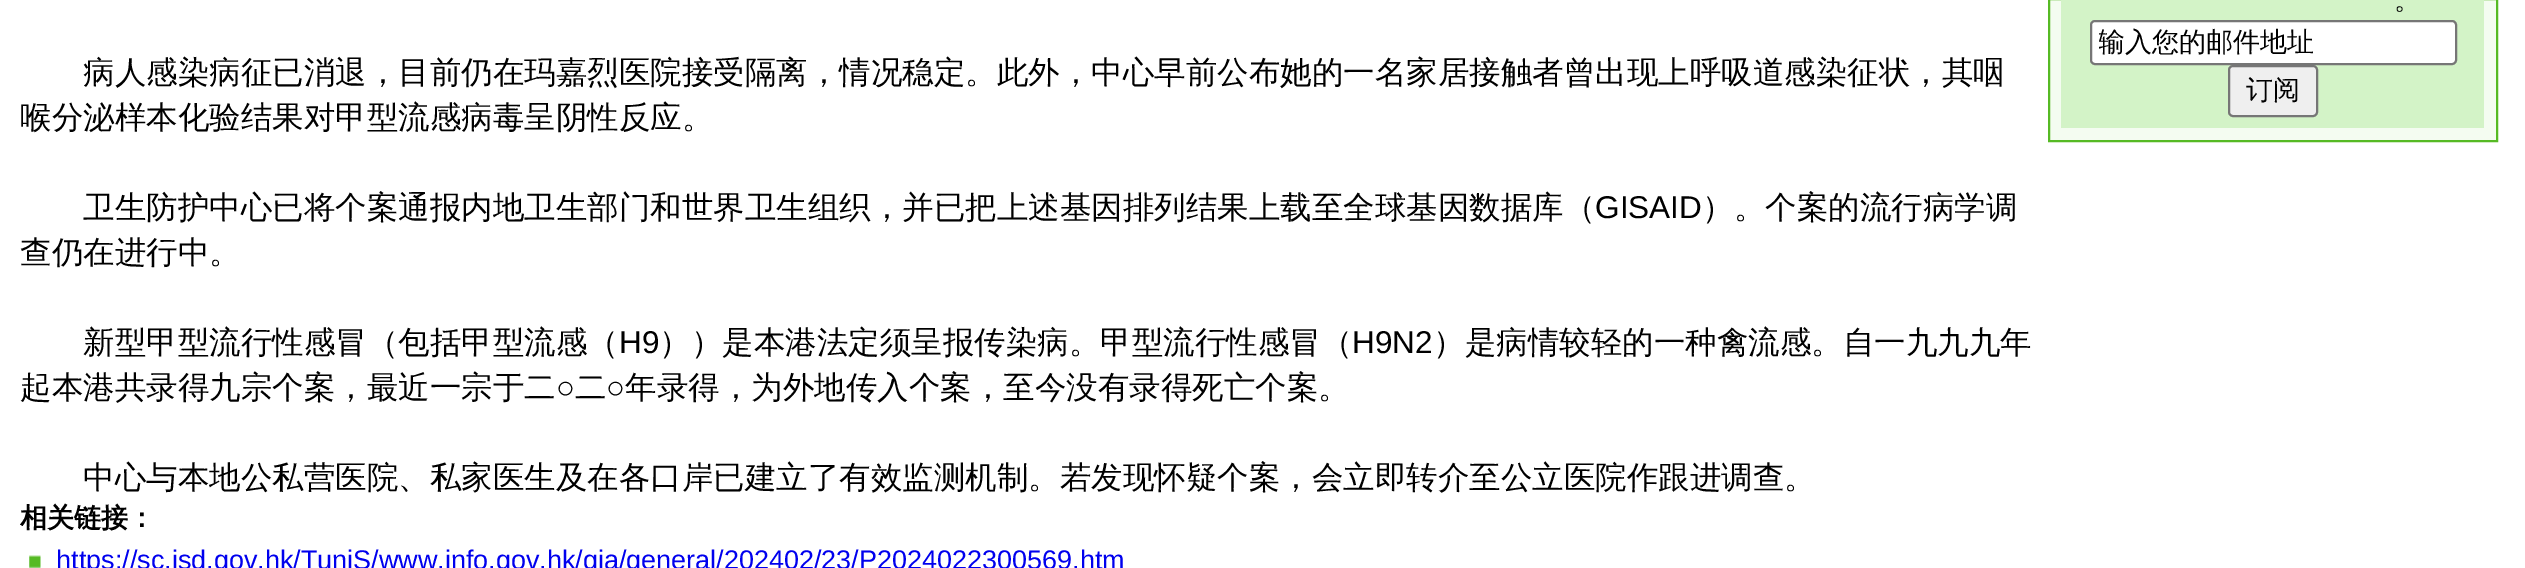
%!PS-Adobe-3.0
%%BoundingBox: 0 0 2525 568
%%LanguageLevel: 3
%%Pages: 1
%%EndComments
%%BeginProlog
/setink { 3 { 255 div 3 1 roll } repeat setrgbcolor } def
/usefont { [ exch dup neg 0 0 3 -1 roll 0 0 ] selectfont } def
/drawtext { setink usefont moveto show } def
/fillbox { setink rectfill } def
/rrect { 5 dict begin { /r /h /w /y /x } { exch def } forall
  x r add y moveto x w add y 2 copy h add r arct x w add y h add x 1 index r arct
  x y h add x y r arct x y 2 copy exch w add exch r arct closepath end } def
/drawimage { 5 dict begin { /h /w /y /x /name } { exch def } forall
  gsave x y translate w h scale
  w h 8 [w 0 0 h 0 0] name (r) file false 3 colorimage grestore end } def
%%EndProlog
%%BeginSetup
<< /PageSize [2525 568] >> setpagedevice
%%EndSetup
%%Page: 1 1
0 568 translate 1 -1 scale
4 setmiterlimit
0 0 2525 568 255 255 255 fillbox
(病人感染病征已消退，目前仍在玛嘉烈医院接受隔离，情况稳定。此外，中心早前公布她的一名家居接触者曾出现上呼吸道感染征状，其咽) 83 83 /WenQuanYiZenHei-Medium 31.5 0 0 0 drawtext
(喉分泌样本化验结果对甲型流感病毒呈阴性反应。) 20 128 /WenQuanYiZenHei-Medium 31.5 0 0 0 drawtext
(卫生防护中心已将个案通报内地卫生部门和世界卫生组织，并已把上述基因排列结果上载至全球基因数据库（) 83 218 /WenQuanYiZenHei-Medium 31.5 0 0 0 drawtext
(GISAID) 1595 218 /LiberationSans-Regular 31.5 0 0 0 drawtext
(）。个案的流行病学调) 1702 218 /WenQuanYiZenHei-Medium 31.5 0 0 0 drawtext
(查仍在进行中。) 20 263 /WenQuanYiZenHei-Medium 31.5 0 0 0 drawtext
(新型甲型流行性感冒（包括甲型流感（) 83 353 /WenQuanYiZenHei-Medium 31.5 0 0 0 drawtext
(H9) 619 353 /LiberationSans-Regular 31.5 0 0 0 drawtext
(））是本港法定须呈报传染病。甲型流行性感冒（) 659 353 /WenQuanYiZenHei-Medium 31.5 0 0 0 drawtext
(H9N2) 1352 353 /LiberationSans-Regular 31.5 0 0 0 drawtext
(）是病情较轻的一种禽流感。自一九九九年) 1433 353 /WenQuanYiZenHei-Medium 31.5 0 0 0 drawtext
(起本港共录得九宗个案，最近一宗于二) 20 398 /WenQuanYiZenHei-Medium 31.5 0 0 0 drawtext
(○) 556 398 /LiberationSans-Regular 31.5 0 0 0 drawtext
(二) 575 398 /WenQuanYiZenHei-Medium 31.5 0 0 0 drawtext
(○) 606 398 /LiberationSans-Regular 31.5 0 0 0 drawtext
(年录得，为外地传入个案，至今没有录得死亡个案。) 625 398 /WenQuanYiZenHei-Medium 31.5 0 0 0 drawtext
(中心与本地公私营医院、私家医生及在各口岸已建立了有效监测机制。若发现怀疑个案，会立即转介至公立医院作跟进调查。) 83 488 /WenQuanYiZenHei-Medium 31.5 0 0 0 drawtext
(相关链接：) 20 527 /WenQuanYiZenHei-Bold 27 0 0 0 drawtext
(assets/img1.rgb) 29 555 12 13 drawimage
(https://sc.isd.gov.hk/TuniS/www.info.gov.hk/gia/general/202402/23/P2024022300569.htm) 56 569 /LiberationSans-Regular 27 0 0 238 drawtext
244 252 241 setink
2049 -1 moveto 2497 -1 lineto 2497 141 lineto 2049 141 lineto closepath gsave fill grestore
86 186 36 setink
2 setlinewidth
stroke
2061 0 423 128 211 243 199 fillbox
(。) 2394 9 /WenQuanYiZenHei-Medium 27 0 0 0 drawtext
255 255 255 setink
2091 21 365 43 4 rrect gsave fill grestore
118 118 118 setink
stroke
gsave
2099 25 349 36 rectclip
(输入您的邮件地址) 2098 51 /WenQuanYiZenHei-Medium 27 0 0 0 drawtext
grestore
239 239 239 setink
2229 66 88 50 4 rrect gsave fill grestore
118 118 118 setink
stroke
(订阅) 2246 99 /WenQuanYiZenHei-Medium 27 0 0 0 drawtext
showpage
%%EOF
